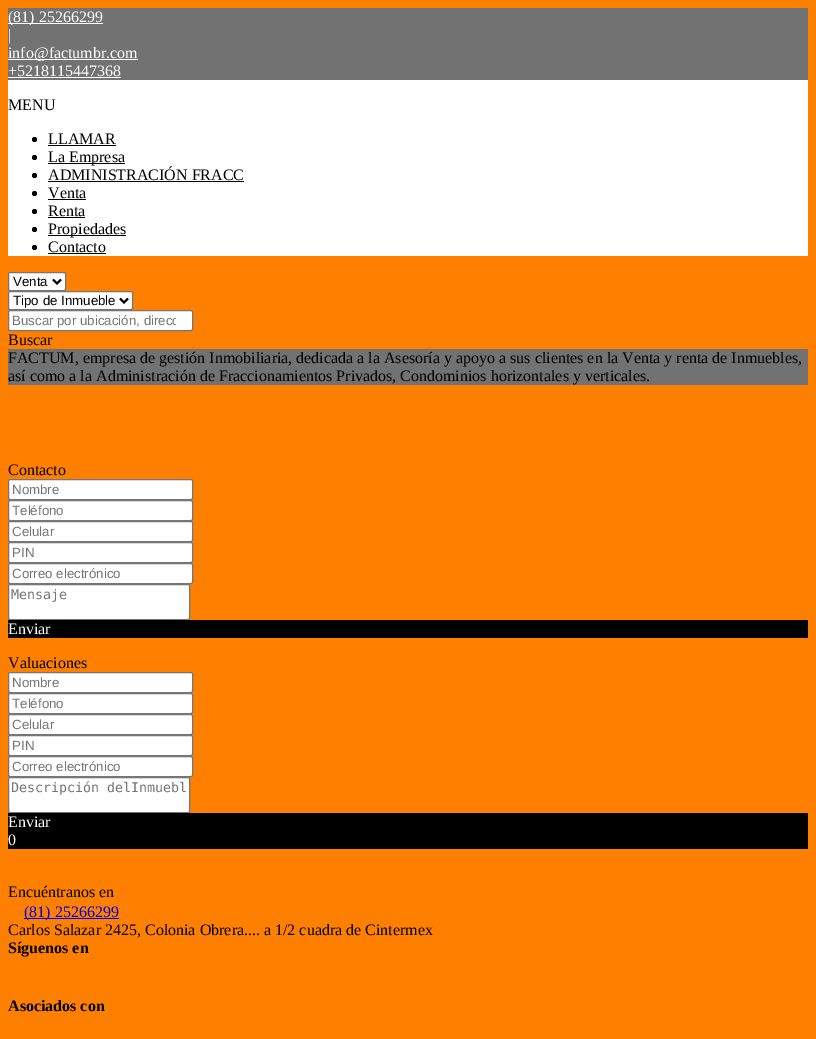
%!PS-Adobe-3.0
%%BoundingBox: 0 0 816 1039
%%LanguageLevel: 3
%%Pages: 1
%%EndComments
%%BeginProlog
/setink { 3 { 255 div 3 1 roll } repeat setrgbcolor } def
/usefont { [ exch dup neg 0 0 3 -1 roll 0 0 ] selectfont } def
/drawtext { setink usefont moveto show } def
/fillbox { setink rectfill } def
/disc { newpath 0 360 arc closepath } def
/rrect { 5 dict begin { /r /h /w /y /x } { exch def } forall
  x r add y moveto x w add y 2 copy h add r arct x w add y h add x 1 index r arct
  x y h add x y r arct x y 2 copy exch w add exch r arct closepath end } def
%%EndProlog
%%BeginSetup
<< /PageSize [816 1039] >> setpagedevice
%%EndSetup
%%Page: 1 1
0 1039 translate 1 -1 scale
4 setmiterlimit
0 0 816 1039 255 128 0 fillbox
8 8 800 72 114 114 114 fillbox
8 23 95 1 255 255 255 fillbox
(\(81\) 25266299) 8 22 /LiberationSerif-Regular 16 255 255 255 drawtext
(|) 8 40 /LiberationSerif-Regular 16 255 255 255 drawtext
8 59 130 1 255 255 255 fillbox
(info@factumbr.com) 8 58 /LiberationSerif-Regular 16 255 255 255 drawtext
(+5218115447368) 8 76 /LiberationSerif-Regular 16 255 255 255 drawtext
8 77 113 1 255 255 255 fillbox
8 80 800 176 255 255 255 fillbox
(MENU) 8 110 /LiberationSerif-Regular 16 0 0 0 drawtext
34.5 139.5 2.5 disc fill
(LLAMAR) 48 144 /LiberationSerif-Regular 16 0 0 0 drawtext
48 145 68 1 0 0 0 fillbox
34.5 157.5 2.5 disc fill
48 163 77 1 0 0 0 fillbox
(La Empresa) 48 162 /LiberationSerif-Regular 16 0 0 0 drawtext
34.5 175.5 2.5 disc fill
(ADMINISTRACIÓN FRACC) 48 180 /LiberationSerif-Regular 16 0 0 0 drawtext
48 181 196 1 0 0 0 fillbox
34.5 193.5 2.5 disc fill
(Venta) 48 198 /LiberationSerif-Regular 16 0 0 0 drawtext
48 199 38 1 0 0 0 fillbox
34.5 211.5 2.5 disc fill
(Renta) 48 216 /LiberationSerif-Regular 16 0 0 0 drawtext
48 217 37 1 0 0 0 fillbox
34.5 229.5 2.5 disc fill
48 235 78 1 0 0 0 fillbox
(Propiedades) 48 234 /LiberationSerif-Regular 16 0 0 0 drawtext
34.5 247.5 2.5 disc fill
(Contacto) 48 252 /LiberationSerif-Regular 16 0 0 0 drawtext
48 253 58 1 0 0 0 fillbox
255 255 255 setink
8.5 272.5 57 18 1.5 rrect gsave fill grestore
118 118 118 setink
stroke
0 0 0 setink
2 setlinewidth
53 279.5 moveto 57 283.5 lineto 61 279.5 lineto stroke
(Venta) 13 286 /LiberationSans-Regular 13.3 0 0 0 drawtext
255 255 255 setink
8.5 291.5 124 18 1.5 rrect gsave fill grestore
118 118 118 setink
1 setlinewidth
stroke
0 0 0 setink
2 setlinewidth
120 298.5 moveto 124 302.5 lineto 128 298.5 lineto stroke
(Tipo de Inmueble) 13 305 /LiberationSans-Regular 13.3 0 0 0 drawtext
255 255 255 setink
8.5 310.5 184 20 1.5 rrect gsave fill grestore
118 118 118 setink
1 setlinewidth
stroke
gsave
12 313 164 15 rectclip
(Buscar por ubicación, direcc) 12 325 /LiberationSans-Regular 13.3 117 117 117 drawtext
grestore
(Buscar) 8 345 /LiberationSerif-Regular 16 0 0 0 drawtext
8 349 800 36 114 114 114 fillbox
(FACTUM, empresa de gestión Inmobiliaria, dedicada a la Asesoría y apoyo a sus clientes en la Venta y renta de Inmuebles,) 8 363 /LiberationSerif-Regular 16 0 0 0 drawtext
(así como a la Administración de Fraccionamientos Privados, Condominios horizontales y verticales.) 8 381 /LiberationSerif-Regular 16 0 0 0 drawtext
(Contacto) 8 475 /LiberationSerif-Regular 16 0 0 0 drawtext
255 255 255 setink
8.5 479.5 184 20 1.5 rrect gsave fill grestore
118 118 118 setink
stroke
(Nombre) 12 494 /LiberationSans-Regular 13.3 117 117 117 drawtext
255 255 255 setink
8.5 500.5 184 20 1.5 rrect gsave fill grestore
118 118 118 setink
stroke
(Teléfono) 12 515 /LiberationSans-Regular 13.3 117 117 117 drawtext
255 255 255 setink
8.5 521.5 184 20 1.5 rrect gsave fill grestore
118 118 118 setink
stroke
(Celular) 12 536 /LiberationSans-Regular 13.3 117 117 117 drawtext
255 255 255 setink
8.5 542.5 184 20 1.5 rrect gsave fill grestore
118 118 118 setink
stroke
(PIN) 12 557 /LiberationSans-Regular 13.3 117 117 117 drawtext
255 255 255 setink
8.5 563.5 184 20 1.5 rrect gsave fill grestore
118 118 118 setink
stroke
(Correo electrónico) 12 578 /LiberationSans-Regular 13.3 117 117 117 drawtext
255 255 255 setink
8.5 584.5 181 35 1.5 rrect gsave fill grestore
118 118 118 setink
stroke
(Mensaje) 11 599 /DejaVuSansMono-Regular 13.3 117 117 117 drawtext
8 620 800 18 0 0 0 fillbox
(Enviar) 8 634 /LiberationSerif-Regular 16 255 255 255 drawtext
(Valuaciones) 8 668 /LiberationSerif-Regular 16 0 0 0 drawtext
255 255 255 setink
8.5 672.5 184 20 1.5 rrect gsave fill grestore
118 118 118 setink
stroke
(Nombre) 12 687 /LiberationSans-Regular 13.3 117 117 117 drawtext
255 255 255 setink
8.5 693.5 184 20 1.5 rrect gsave fill grestore
118 118 118 setink
stroke
(Teléfono) 12 708 /LiberationSans-Regular 13.3 117 117 117 drawtext
255 255 255 setink
8.5 714.5 184 20 1.5 rrect gsave fill grestore
118 118 118 setink
stroke
(Celular) 12 729 /LiberationSans-Regular 13.3 117 117 117 drawtext
255 255 255 setink
8.5 735.5 184 20 1.5 rrect gsave fill grestore
118 118 118 setink
stroke
(PIN) 12 750 /LiberationSans-Regular 13.3 117 117 117 drawtext
255 255 255 setink
8.5 756.5 184 20 1.5 rrect gsave fill grestore
118 118 118 setink
stroke
(Correo electrónico) 12 771 /LiberationSans-Regular 13.3 117 117 117 drawtext
255 255 255 setink
8.5 777.5 181 35 1.5 rrect gsave fill grestore
118 118 118 setink
stroke
(Descripción delInmuebl) 11 792 /DejaVuSansMono-Regular 13.3 117 117 117 drawtext
8 813 800 36 0 0 0 fillbox
(Enviar) 8 827 /LiberationSerif-Regular 16 255 255 255 drawtext
(0) 8 845 /LiberationSerif-Regular 16 255 255 255 drawtext
(Encuéntranos en) 8 897 /LiberationSerif-Regular 16 0 0 0 drawtext
24 918 95 1 0 0 238 fillbox
(\(81\) 25266299) 24 917 /LiberationSerif-Regular 16 0 0 238 drawtext
(Carlos Salazar 2425, Colonia Obrera.... a 1/2 cuadra de Cintermex) 8 935 /LiberationSerif-Regular 16 0 0 0 drawtext
(Síguenos en) 8 953 /LiberationSerif-Bold 16 0 0 0 drawtext
(Asociados con) 8 1011 /LiberationSerif-Bold 16 0 0 0 drawtext
showpage
%%EOF
